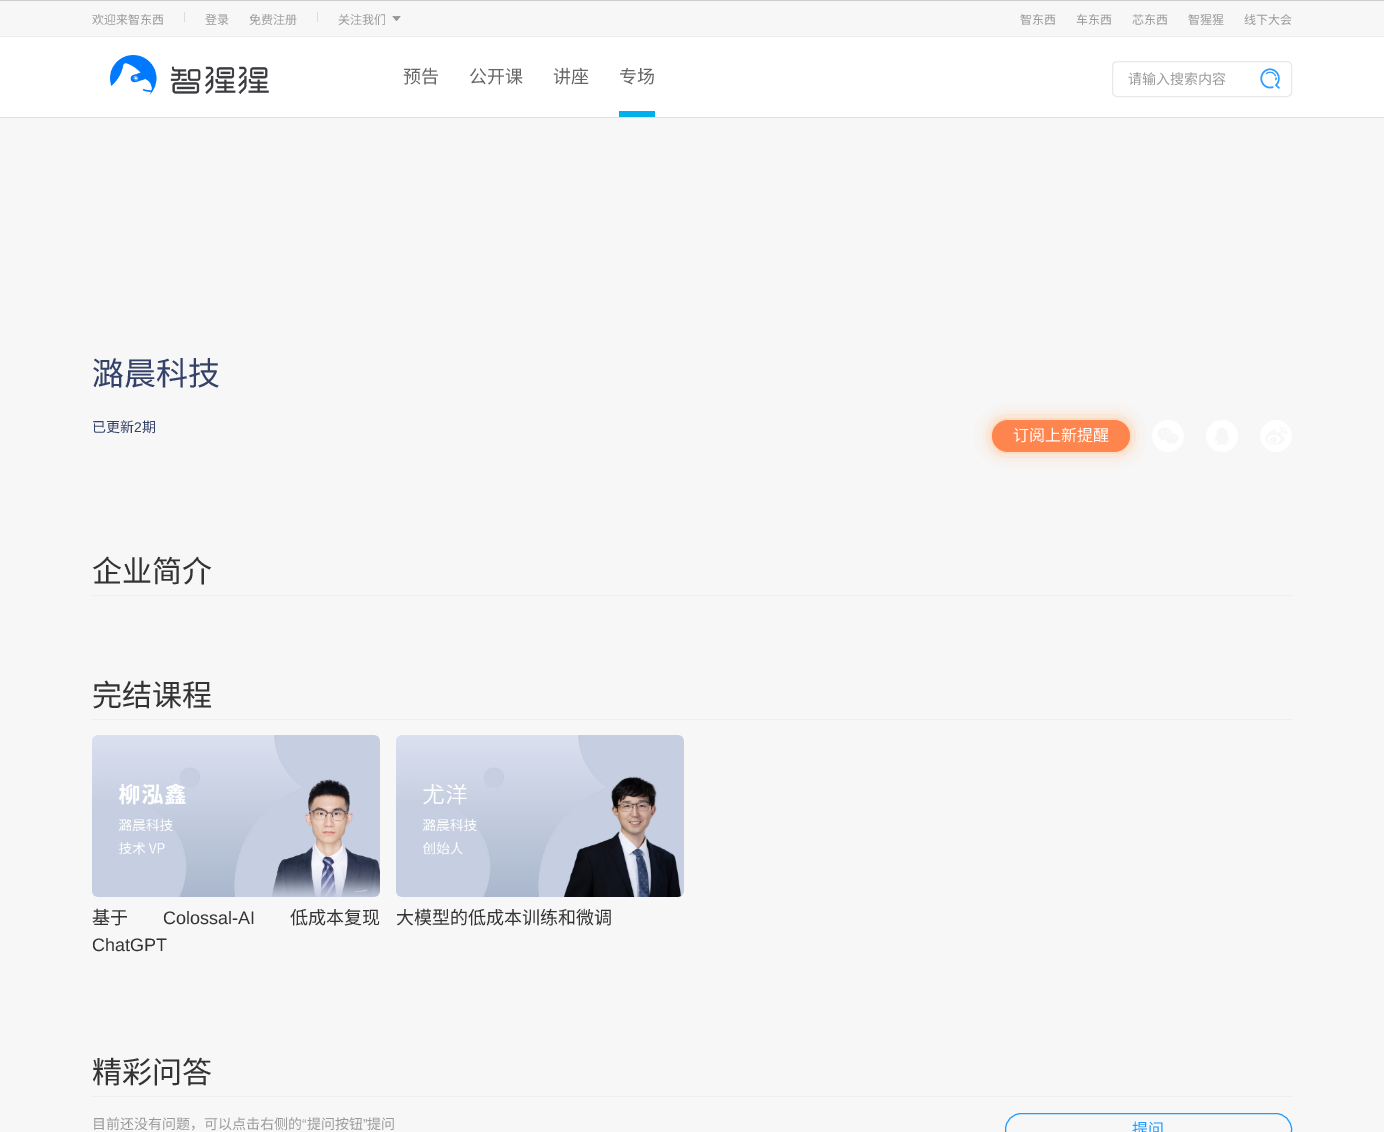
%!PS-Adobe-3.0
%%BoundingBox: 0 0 1384 1132
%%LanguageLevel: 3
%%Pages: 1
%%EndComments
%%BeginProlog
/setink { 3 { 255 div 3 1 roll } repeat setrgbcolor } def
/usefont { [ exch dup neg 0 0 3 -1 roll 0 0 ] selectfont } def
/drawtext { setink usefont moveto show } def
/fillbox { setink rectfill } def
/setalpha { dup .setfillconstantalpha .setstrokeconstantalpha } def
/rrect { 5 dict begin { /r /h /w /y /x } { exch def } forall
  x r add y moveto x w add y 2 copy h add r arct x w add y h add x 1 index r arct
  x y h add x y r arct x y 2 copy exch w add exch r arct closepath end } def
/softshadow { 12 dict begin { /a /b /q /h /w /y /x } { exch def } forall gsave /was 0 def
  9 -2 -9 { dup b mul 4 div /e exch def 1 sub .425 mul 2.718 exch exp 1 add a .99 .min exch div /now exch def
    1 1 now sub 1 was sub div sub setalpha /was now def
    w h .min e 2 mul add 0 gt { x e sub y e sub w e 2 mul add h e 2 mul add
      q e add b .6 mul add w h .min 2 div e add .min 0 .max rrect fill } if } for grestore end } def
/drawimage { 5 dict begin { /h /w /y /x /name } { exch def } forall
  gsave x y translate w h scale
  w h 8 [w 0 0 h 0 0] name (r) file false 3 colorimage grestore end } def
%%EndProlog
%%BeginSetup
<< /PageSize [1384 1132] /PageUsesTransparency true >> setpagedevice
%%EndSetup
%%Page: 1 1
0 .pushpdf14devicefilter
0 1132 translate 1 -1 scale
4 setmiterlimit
0 0 1384 1132 247 247 247 fillbox
0 0 1384 1 205 205 205 fillbox
0 36 1384 1 236 236 236 fillbox
(欢迎来智东西) 92 24 /NotoSansCJKSC-Regular 12 153 153 153 drawtext
184 12 1 10 220 220 220 fillbox
(登录) 205 24 /NotoSansCJKSC-Regular 12 153 153 153 drawtext
(免费注册) 249 24 /NotoSansCJKSC-Regular 12 153 153 153 drawtext
317 12 1 10 220 220 220 fillbox
(关注我们) 338 24 /NotoSansCJKSC-Regular 12 153 153 153 drawtext
(assets/img1.rgb) 392 16 9 5 drawimage
(智东西) 1020 24 /NotoSansCJKSC-Regular 12 153 153 153 drawtext
(车东西) 1076 24 /NotoSansCJKSC-Regular 12 153 153 153 drawtext
(芯东西) 1132 24 /NotoSansCJKSC-Regular 12 153 153 153 drawtext
(智猩猩) 1188 24 /NotoSansCJKSC-Regular 12 153 153 153 drawtext
(线下大会) 1244 24 /NotoSansCJKSC-Regular 12 153 153 153 drawtext
0 37 1384 80 255 255 255 fillbox
0 117 1384 1 223 223 223 fillbox
(assets/img2.rgb) 110 55 159 40 drawimage
(预告) 403 83 /NotoSansCJKSC-Regular 18 102 102 102 drawtext
(公开课) 469 83 /NotoSansCJKSC-Regular 18 102 102 102 drawtext
(讲座) 553 83 /NotoSansCJKSC-Regular 18 102 102 102 drawtext
619 111 36 6 0 176 236 fillbox
(专场) 619 83 /NotoSansCJKSC-Regular 18 102 102 102 drawtext
233 233 233 setink
1112.5 61.5 179 35 4.5 rrect stroke
(请输入搜索内容) 1128 84 /NotoSansCJKSC-Regular 14 153 153 153 drawtext
(assets/img3.rgb) 1260 68 20 21 drawimage
(潞晨科技) 92 385 /NotoSansCJKSC-Regular 32 52 65 104 drawtext
(已更新) 92 432 /NotoSansCJKSC-Regular 14 52 65 104 drawtext
(2) 134 432 /LiberationSans-Regular 14 52 65 104 drawtext
(期) 142 432 /NotoSansCJKSC-Regular 14 52 65 104 drawtext
(assets/img4.rgb) 1152 420 32 32 drawimage
255 194 142 setink
992 420 138 32 16 8 1 softshadow
255 133 79 setink
992 420 138 32 16 rrect fill
(订阅上新提醒) 1013 441 /NotoSansCJKSC-Regular 16 255 255 255 drawtext
(assets/img5.rgb) 1206 420 32 32 drawimage
(assets/img6.rgb) 1260 420 32 32 drawimage
92 595 1200 1 239 239 239 fillbox
(企业简介) 92 582 /NotoSansCJKSC-Regular 30 51 51 51 drawtext
92 719 1200 1 239 239 239 fillbox
(完结课程) 92 706 /NotoSansCJKSC-Regular 30 51 51 51 drawtext
(assets/img7.rgb) 92 735 288 162 drawimage
(基于) 92 924 /NotoSansCJKSC-Regular 18 51 51 51 drawtext
(Colossal-AI) 163 924 /LiberationSans-Regular 18 51 51 51 drawtext
(低成本复现) 290 924 /NotoSansCJKSC-Regular 18 51 51 51 drawtext
(ChatGPT) 92 951 /LiberationSans-Regular 18 51 51 51 drawtext
(assets/img8.rgb) 396 735 288 162 drawimage
(大模型的低成本训练和微调) 396 924 /NotoSansCJKSC-Regular 18 51 51 51 drawtext
92 1096 1200 1 239 239 239 fillbox
(精彩问答) 92 1083 /NotoSansCJKSC-Regular 30 51 51 51 drawtext
(目前还没有问题，可以点击右侧的) 92 1129 /NotoSansCJKSC-Regular 14 153 153 153 drawtext
(“) 302 1129 /LiberationSans-Regular 14 153 153 153 drawtext
(提问按钮) 307 1129 /NotoSansCJKSC-Regular 14 153 153 153 drawtext
(”) 363 1129 /LiberationSans-Regular 14 153 153 153 drawtext
(提问) 367 1129 /NotoSansCJKSC-Regular 14 153 153 153 drawtext
32 156 255 setink
1005.5 1113.5 286 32 16 rrect stroke
(提问) 1132 1135 /NotoSansCJKSC-Regular 16 32 156 255 drawtext
.poppdf14devicefilter showpage
%%EOF
